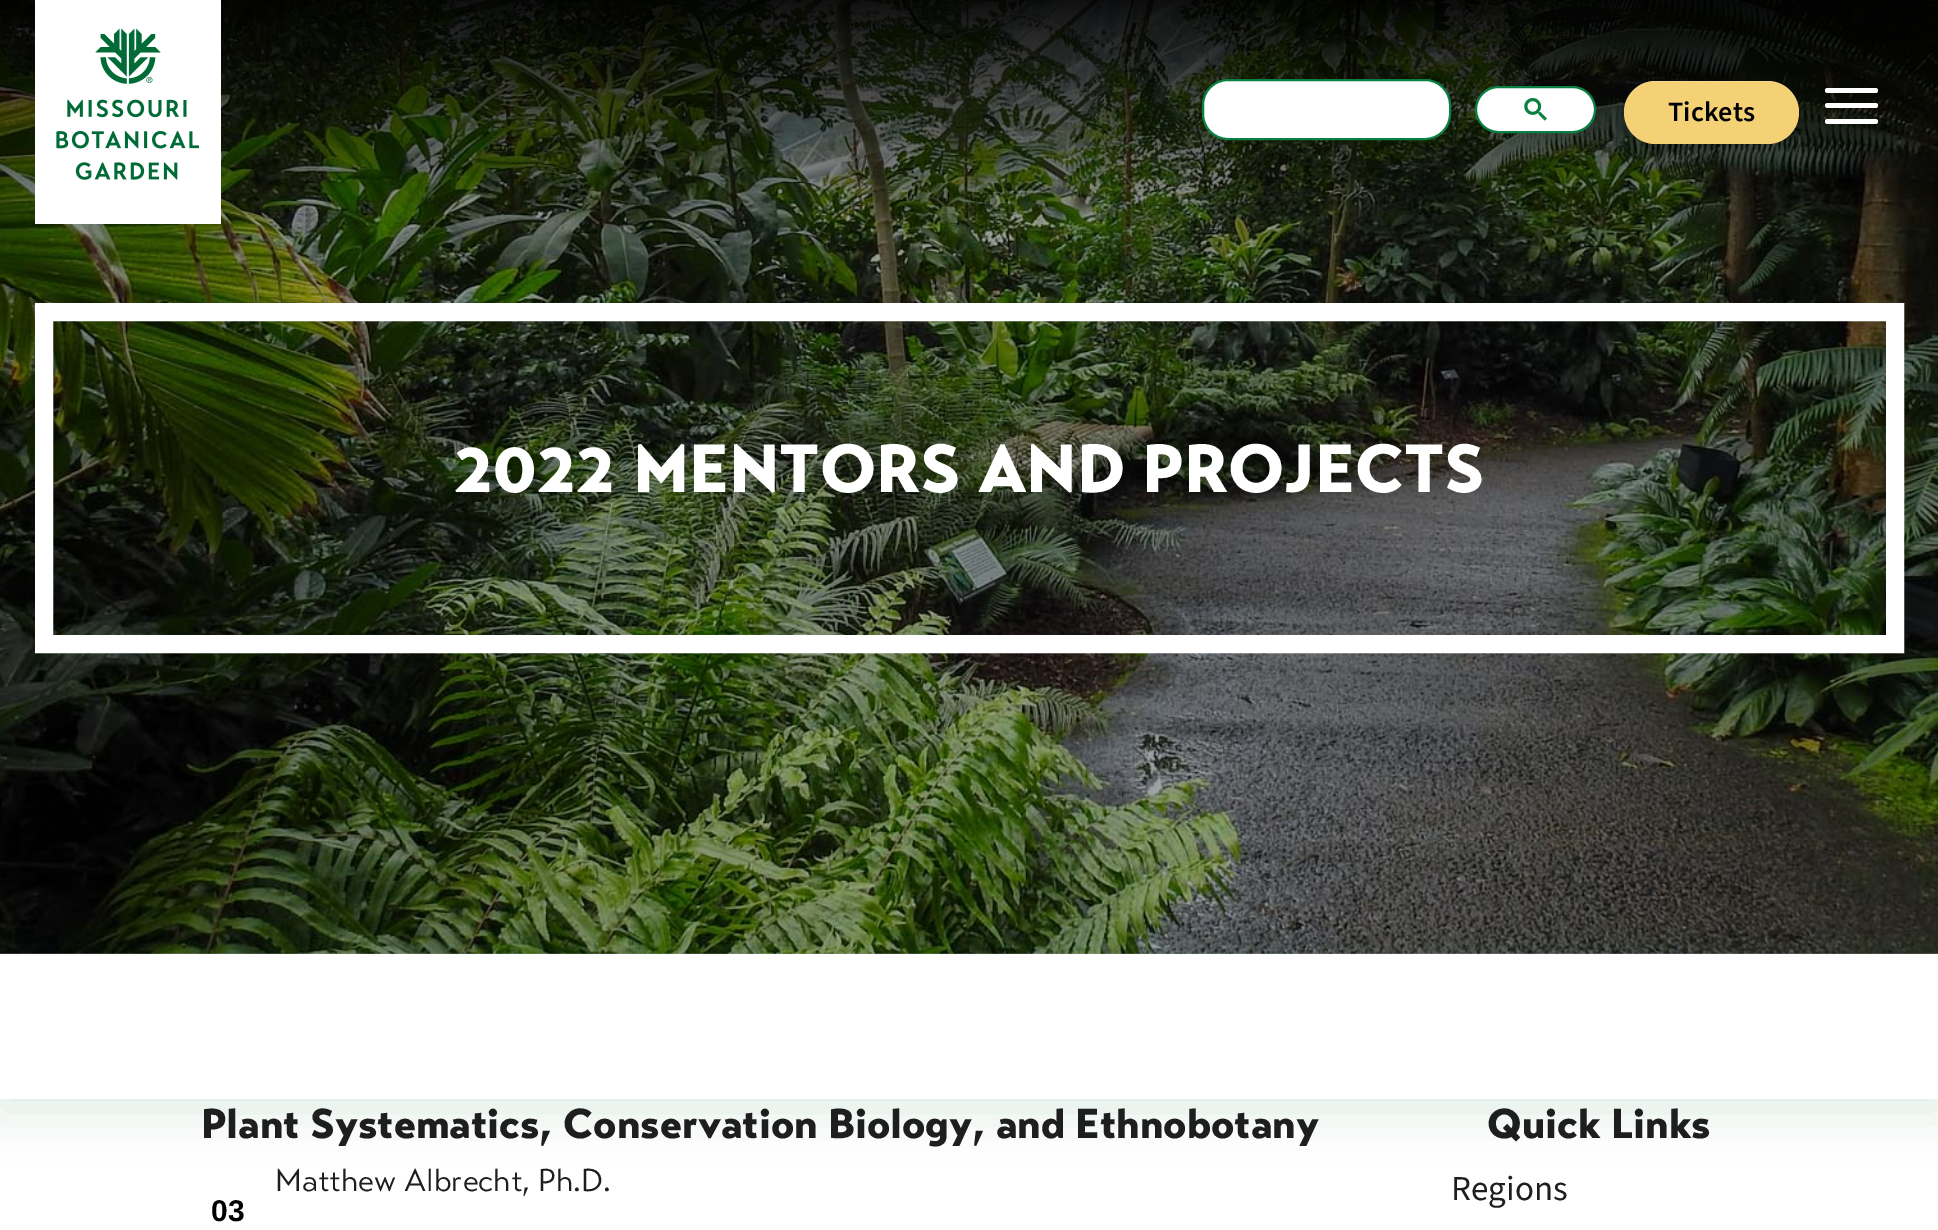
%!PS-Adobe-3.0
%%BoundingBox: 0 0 1938 1230
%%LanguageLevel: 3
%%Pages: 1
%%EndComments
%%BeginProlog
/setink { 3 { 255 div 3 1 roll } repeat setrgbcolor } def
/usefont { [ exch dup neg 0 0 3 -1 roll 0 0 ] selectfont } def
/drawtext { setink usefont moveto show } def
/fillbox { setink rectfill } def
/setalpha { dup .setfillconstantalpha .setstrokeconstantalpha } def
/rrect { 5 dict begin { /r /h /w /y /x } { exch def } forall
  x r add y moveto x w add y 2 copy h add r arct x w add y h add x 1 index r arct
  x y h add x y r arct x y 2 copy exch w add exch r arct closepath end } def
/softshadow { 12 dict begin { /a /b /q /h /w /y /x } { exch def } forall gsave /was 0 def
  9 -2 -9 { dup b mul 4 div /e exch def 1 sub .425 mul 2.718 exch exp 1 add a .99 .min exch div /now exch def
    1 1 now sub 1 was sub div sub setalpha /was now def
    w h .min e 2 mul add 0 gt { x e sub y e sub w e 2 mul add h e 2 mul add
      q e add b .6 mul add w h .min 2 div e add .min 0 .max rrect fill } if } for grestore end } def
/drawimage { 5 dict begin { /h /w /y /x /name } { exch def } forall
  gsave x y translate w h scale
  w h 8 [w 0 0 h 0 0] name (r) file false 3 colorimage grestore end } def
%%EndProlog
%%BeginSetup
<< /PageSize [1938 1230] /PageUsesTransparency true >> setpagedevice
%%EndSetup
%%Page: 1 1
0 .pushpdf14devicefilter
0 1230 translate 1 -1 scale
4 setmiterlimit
0 0 1938 1230 255 255 255 fillbox
(assets/img3.rgb) 0 0 1938 954 drawimage
35 0 186 224 255 255 255 fillbox
(assets/img1.rgb) 56 28 144 152 drawimage
1203 80 247 59 25 rrect gsave fill grestore
11 128 67 setink
2 setlinewidth
stroke
255 255 255 setink
1476 87 119 45 22.5 rrect gsave fill grestore
11 128 67 setink
stroke
(assets/img2.rgb) 1524 98 23 23 drawimage
243 209 116 setink
1624 81 175 63 31.5 rrect fill
0.15 setalpha
255 255 255 setink
1656 82 moveto 1768 82 lineto 1785 82 1799 96 1799 113 curveto 1799 112 lineto 1799 95 1785 81 1768 81 curveto 1656 81 lineto 1638 81 1624 95 1624 112 curveto 1624 113 lineto 1624 96 1638 82 1656 82 curveto closepath fill
1 setalpha
(Tickets) 1668 121 /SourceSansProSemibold-SemiBold 28 0 0 0 drawtext
255 255 255 setink
1825 103 53 5 2.5 rrect fill
1825 88 53 5 2.5 rrect fill
1825 119 53 5 2.5 rrect fill
18 setlinewidth
44 312 1851 332 rectstroke
(2022 MENTORS AND PROJECTS) 454 492 /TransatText-Black 67.6 255 255 255 drawtext
gsave
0 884 moveto 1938 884 lineto 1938 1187 lineto 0 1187 lineto closepath 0 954 moveto 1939 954 lineto 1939 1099 lineto 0 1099 lineto closepath eoclip newpath
0 107 54 setink
0 963 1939 145 0 26 0.15 softshadow
grestore
(Plant Systematics, Conservation Biology, and Ethnobotany) 201 1138 /TransatText-Black 41.5 30 30 31 drawtext
(Matthew Albrecht, Ph.D.) 275 1191 /TransatText-Regular 31.5 30 30 31 drawtext
(03) 211 1221 /LiberationSans-Bold 30 0 0 0 drawtext
(Quick Links) 1487 1138 /TransatText-Black 41.5 30 30 31 drawtext
(Regions) 1451 1200 /SourceSansPro-Regular 35 30 30 31 drawtext
.poppdf14devicefilter showpage
%%EOF
